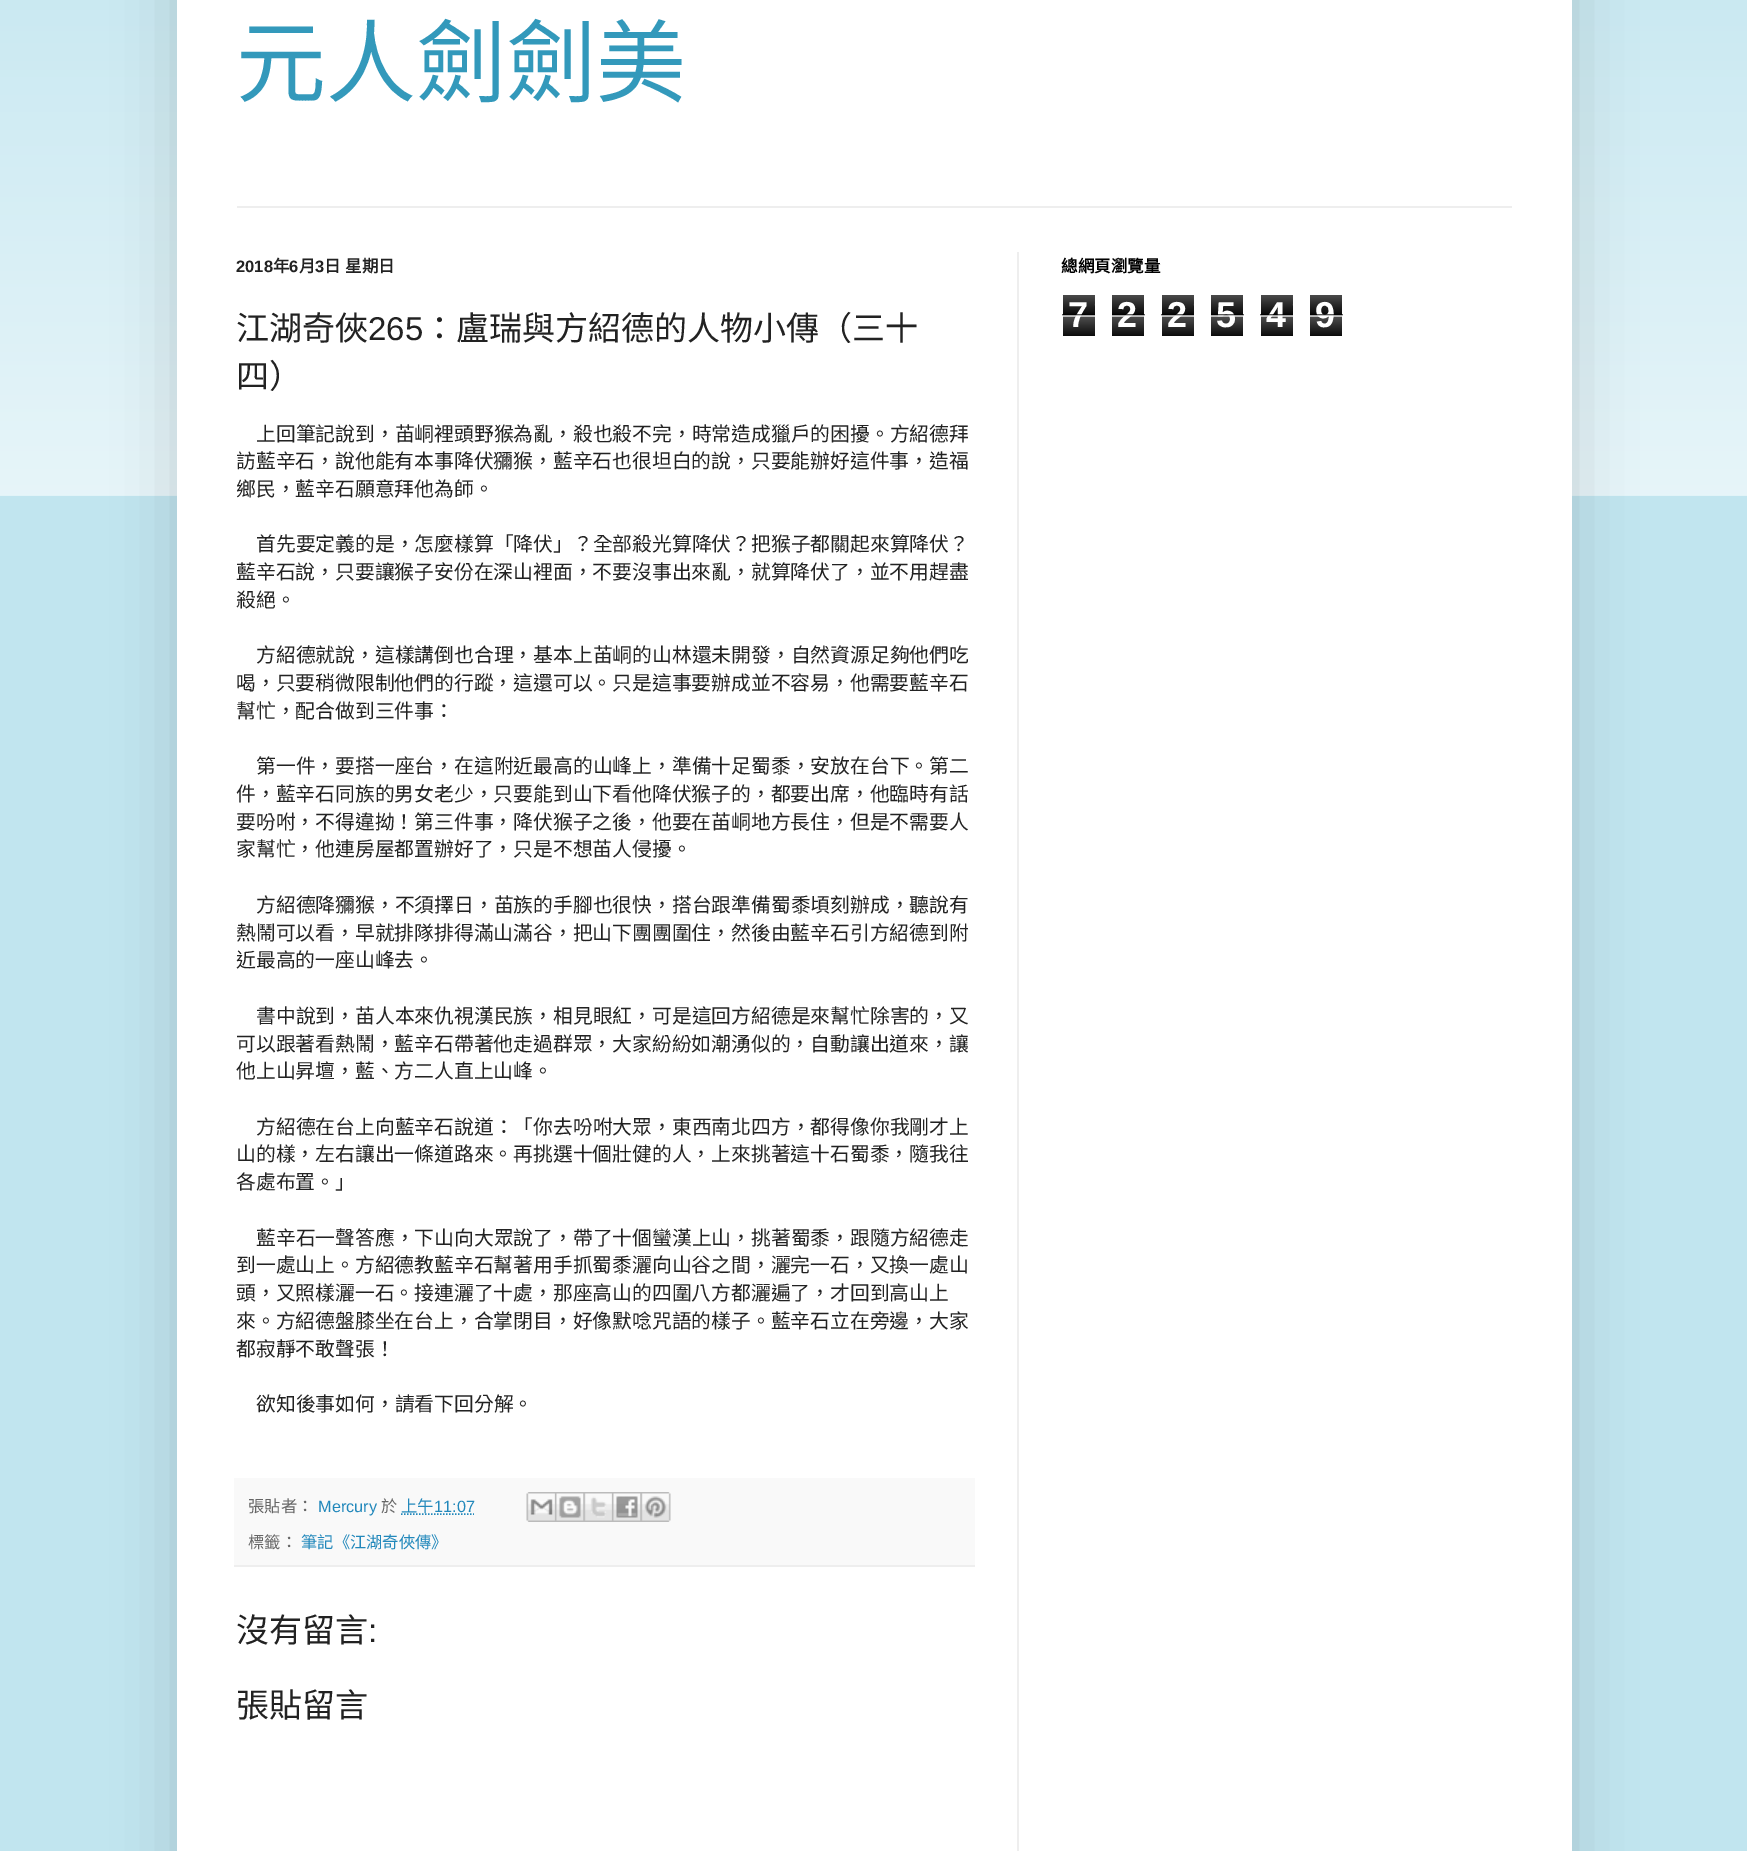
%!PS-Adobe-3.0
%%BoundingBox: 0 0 1747 1851
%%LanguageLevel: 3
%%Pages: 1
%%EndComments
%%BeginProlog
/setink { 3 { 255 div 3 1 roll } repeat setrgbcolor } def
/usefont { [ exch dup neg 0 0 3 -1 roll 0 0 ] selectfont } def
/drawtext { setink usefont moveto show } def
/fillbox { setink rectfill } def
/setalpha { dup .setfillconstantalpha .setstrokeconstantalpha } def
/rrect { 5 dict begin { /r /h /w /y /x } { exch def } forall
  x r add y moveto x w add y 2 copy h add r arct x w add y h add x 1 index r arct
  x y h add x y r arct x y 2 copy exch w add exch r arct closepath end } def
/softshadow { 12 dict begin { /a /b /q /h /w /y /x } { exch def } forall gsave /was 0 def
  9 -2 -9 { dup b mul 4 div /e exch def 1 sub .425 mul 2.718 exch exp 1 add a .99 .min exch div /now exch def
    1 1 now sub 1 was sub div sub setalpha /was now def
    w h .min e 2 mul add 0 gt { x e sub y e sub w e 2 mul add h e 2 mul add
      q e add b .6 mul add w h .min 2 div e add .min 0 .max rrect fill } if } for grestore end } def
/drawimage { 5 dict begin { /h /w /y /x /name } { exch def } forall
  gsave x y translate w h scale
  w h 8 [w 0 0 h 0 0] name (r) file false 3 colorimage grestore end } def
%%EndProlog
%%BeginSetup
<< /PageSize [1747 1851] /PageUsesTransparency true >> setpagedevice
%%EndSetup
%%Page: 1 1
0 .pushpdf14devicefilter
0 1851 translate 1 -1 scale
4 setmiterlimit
0 0 1747 1851 193 229 239 fillbox
(assets/img1.rgb) 0 0 1747 496 drawimage
0 0 0 setink
177 -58 1395 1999 0 30 0.15 softshadow
177 0 1395 1851 255 255 255 fillbox
(元人劍劍美) 236 95 /NotoSansCJKTC-Regular 90 51 153 187 drawtext
237 206 1275 2 238 238 238 fillbox
1017 252 2 1599 238 238 238 fillbox
(2018) 236 272 /LiberationSans-Bold 16.5 34 34 34 drawtext
(年) 273 272 /NotoSansCJKTC-Bold 16.5 34 34 34 drawtext
(6) 289 272 /LiberationSans-Bold 16.5 34 34 34 drawtext
(月) 299 272 /NotoSansCJKTC-Bold 16.5 34 34 34 drawtext
(3) 315 272 /LiberationSans-Bold 16.5 34 34 34 drawtext
/NotoSansCJKTC-Bold 16.5 usefont
324 272 moveto 1 0 32 (日 星期日) widthshow
(江湖奇俠) 236 340 /NotoSansCJKTC-Regular 33 34 34 34 drawtext
(265) 368 340 /LiberationSans-Regular 33 34 34 34 drawtext
(：盧瑞與方紹德的人物小傳（三十) 423 340 /NotoSansCJKTC-Regular 33 34 34 34 drawtext
(四）) 236 388 /NotoSansCJKTC-Regular 33 34 34 34 drawtext
(上回筆記說到，苖峒裡頭野猴為亂，殺也殺不完，時常造成獵戶的困擾。方紹德拜) 256 441 /NotoSansCJKTC-Regular 19.8 34 34 34 drawtext
(訪藍辛石，說他能有本事降伏獼猴，藍辛石也很坦白的說，只要能辦好這件事，造福) 236 468 /NotoSansCJKTC-Regular 19.8 34 34 34 drawtext
(鄉民，藍辛石願意拜他為師。) 236 496 /NotoSansCJKTC-Regular 19.8 34 34 34 drawtext
(首先要定義的是，怎麼樣算「降伏」？全部殺光算降伏？把猴子都關起來算降伏？) 256 551 /NotoSansCJKTC-Regular 19.8 34 34 34 drawtext
(藍辛石說，只要讓猴子安份在深山裡面，不要沒事出來亂，就算降伏了，並不用趕盡) 236 579 /NotoSansCJKTC-Regular 19.8 34 34 34 drawtext
(殺絕。) 236 607 /NotoSansCJKTC-Regular 19.8 34 34 34 drawtext
(方紹德就說，這樣講倒也合理，基本上苖峒的山林還未開發，自然資源足夠他們吃) 256 662 /NotoSansCJKTC-Regular 19.8 34 34 34 drawtext
(喝，只要稍微限制他們的行蹤，這還可以。只是這事要辦成並不容易，他需要藍辛石) 236 690 /NotoSansCJKTC-Regular 19.8 34 34 34 drawtext
(幫忙，配合做到三件事：) 236 718 /NotoSansCJKTC-Regular 19.8 34 34 34 drawtext
(第一件，要搭一座台，在這附近最高的山峰上，準備十足蜀黍，安放在台下。第二) 256 773 /NotoSansCJKTC-Regular 19.8 34 34 34 drawtext
(件，藍辛石同族的男女老少，只要能到山下看他降伏猴子的，都要出席，他臨時有話) 236 801 /NotoSansCJKTC-Regular 19.8 34 34 34 drawtext
(要吩咐，不得違拗！第三件事，降伏猴子之後，他要在苖峒地方長住，但是不需要人) 236 829 /NotoSansCJKTC-Regular 19.8 34 34 34 drawtext
(家幫忙，他連房屋都置辦好了，只是不想苖人侵擾。) 236 856 /NotoSansCJKTC-Regular 19.8 34 34 34 drawtext
(方紹德降獼猴，不須擇日，苖族的手腳也很快，搭台跟準備蜀黍頃刻辦成，聽說有) 256 912 /NotoSansCJKTC-Regular 19.8 34 34 34 drawtext
(熱鬧可以看，早就排隊排得滿山滿谷，把山下團團圍住，然後由藍辛石引方紹德到附) 236 940 /NotoSansCJKTC-Regular 19.8 34 34 34 drawtext
(近最高的一座山峰去。) 236 967 /NotoSansCJKTC-Regular 19.8 34 34 34 drawtext
(書中說到，苖人本來仇視漢民族，相見眼紅，可是這回方紹德是來幫忙除害的，又) 256 1023 /NotoSansCJKTC-Regular 19.8 34 34 34 drawtext
(可以跟著看熱鬧，藍辛石帶著他走過群眾，大家紛紛如潮湧似的，自動讓出道來，讓) 236 1051 /NotoSansCJKTC-Regular 19.8 34 34 34 drawtext
(他上山昇壇，藍、方二人直上山峰。) 236 1078 /NotoSansCJKTC-Regular 19.8 34 34 34 drawtext
(方紹德在台上向藍辛石說道：「你去吩咐大眾，東西南北四方，都得像你我剛才上) 256 1134 /NotoSansCJKTC-Regular 19.8 34 34 34 drawtext
(山的樣，左右讓出一條道路來。再挑選十個壯健的人，上來挑著這十石蜀黍，隨我往) 236 1161 /NotoSansCJKTC-Regular 19.8 34 34 34 drawtext
(各處布置。」) 236 1189 /NotoSansCJKTC-Regular 19.8 34 34 34 drawtext
(藍辛石一聲答應，下山向大眾說了，帶了十個蠻漢上山，挑著蜀黍，跟隨方紹德走) 256 1245 /NotoSansCJKTC-Regular 19.8 34 34 34 drawtext
(到一處山上。方紹德教藍辛石幫著用手抓蜀黍灑向山谷之間，灑完一石，又換一處山) 236 1272 /NotoSansCJKTC-Regular 19.8 34 34 34 drawtext
(頭，又照樣灑一石。接連灑了十處，那座高山的四圍八方都灑遍了，才回到高山上) 236 1300 /NotoSansCJKTC-Regular 19.8 34 34 34 drawtext
(來。方紹德盤膝坐在台上，合掌閉目，好像默唸咒語的樣子。藍辛石立在旁邊，大家) 236 1328 /NotoSansCJKTC-Regular 19.8 34 34 34 drawtext
(都寂靜不敢聲張！) 236 1356 /NotoSansCJKTC-Regular 19.8 34 34 34 drawtext
(欲知後事如何，請看下回分解。) 256 1411 /NotoSansCJKTC-Regular 19.8 34 34 34 drawtext
234 1478 741 87 249 249 249 fillbox
234 1565 741 2 238 238 238 fillbox
(張貼者：) 248 1512 /NotoSansCJKTC-Regular 16.25 102 102 102 drawtext
(Mercury) 318 1512 /LiberationSans-Regular 16.25 34 136 187 drawtext
(於) 381 1512 /NotoSansCJKTC-Regular 16.25 102 102 102 drawtext
34 136 187 setink
1.5 setlinewidth
[1.5 1.5] 0 setdash
401 1514 moveto 474 1514 lineto stroke
(上午) 401 1512 /NotoSansCJKTC-Regular 16.25 34 136 187 drawtext
(11:07) 434 1512 /LiberationSans-Regular 16.25 34 136 187 drawtext
(assets/img2.rgb) 526 1492 29 30 drawimage
(assets/img3.rgb) 555 1492 29 30 drawimage
(assets/img4.rgb) 583 1492 29 30 drawimage
(assets/img5.rgb) 612 1492 29 30 drawimage
(assets/img6.rgb) 640 1492 31 30 drawimage
(標籤：) 248 1548 /NotoSansCJKTC-Regular 16.25 102 102 102 drawtext
(筆記《江湖奇俠傳》) 301 1548 /NotoSansCJKTC-Regular 16.25 34 136 187 drawtext
(沒有留言) 236 1642 /NotoSansCJKTC-Regular 33 34 34 34 drawtext
(:) 368 1642 /LiberationSans-Regular 33 34 34 34 drawtext
(張貼留言) 236 1717 /NotoSansCJKTC-Regular 33 34 34 34 drawtext
(總網頁瀏覽量) 1061 272 /NotoSansCJKTC-Bold 16.5 0 0 0 drawtext
(assets/img7.rgb) 1063 295 32 41 drawimage
(7) 1068 327 /LiberationSans-Bold 36 255 255 255 drawtext
0.65 setalpha
1062 314 33 2 0 0 0 fillbox
1062 315 33 2 255 255 255 fillbox
1 setalpha
(assets/img8.rgb) 1112 295 32 41 drawimage
(2) 1117 327 /LiberationSans-Bold 36 255 255 255 drawtext
0.65 setalpha
1112 314 33 2 0 0 0 fillbox
1112 315 33 2 255 255 255 fillbox
1 setalpha
(assets/img7.rgb) 1162 295 32 41 drawimage
(2) 1167 327 /LiberationSans-Bold 36 255 255 255 drawtext
0.65 setalpha
1161 314 33 2 0 0 0 fillbox
1161 315 33 2 255 255 255 fillbox
1 setalpha
(assets/img8.rgb) 1211 295 32 41 drawimage
(5) 1216 327 /LiberationSans-Bold 36 255 255 255 drawtext
0.65 setalpha
1211 314 33 2 0 0 0 fillbox
1211 315 33 2 255 255 255 fillbox
1 setalpha
(assets/img7.rgb) 1261 295 32 41 drawimage
(4) 1266 327 /LiberationSans-Bold 36 255 255 255 drawtext
0.65 setalpha
1260 314 33 2 0 0 0 fillbox
1260 315 33 2 255 255 255 fillbox
1 setalpha
(assets/img8.rgb) 1310 295 32 41 drawimage
(9) 1315 327 /LiberationSans-Bold 36 255 255 255 drawtext
0.65 setalpha
1310 314 33 2 0 0 0 fillbox
1310 315 33 2 255 255 255 fillbox
.poppdf14devicefilter showpage
%%EOF
